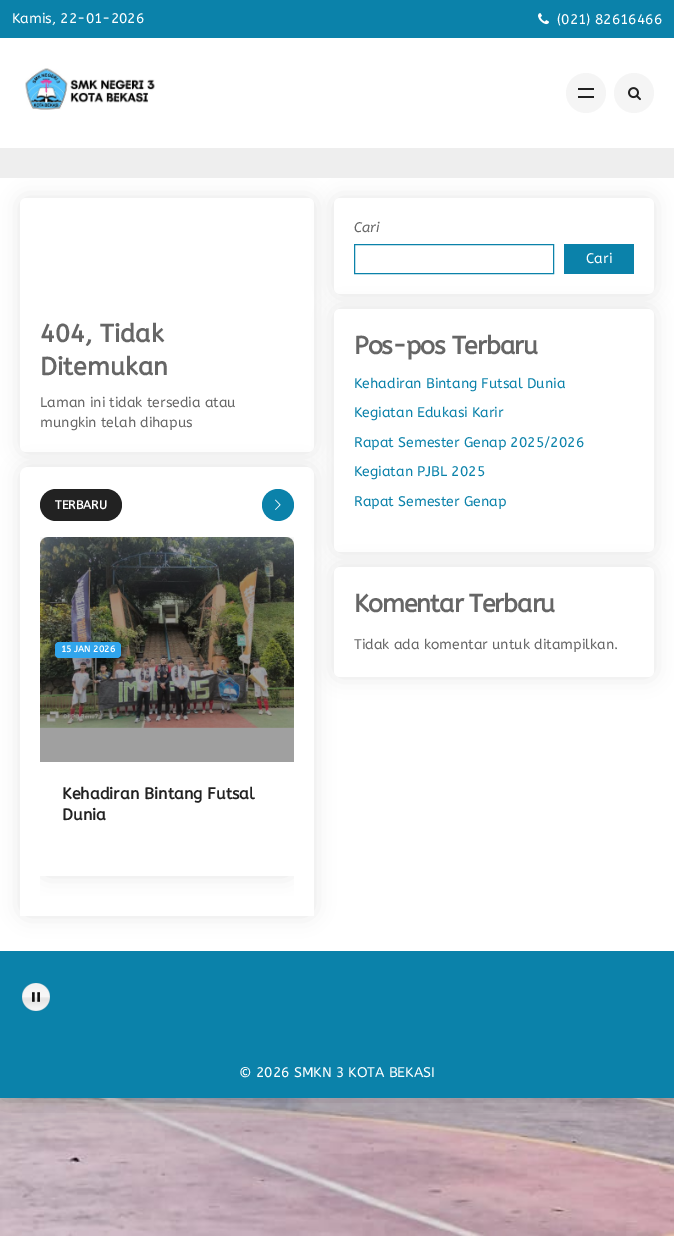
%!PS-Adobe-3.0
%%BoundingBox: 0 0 674 1236
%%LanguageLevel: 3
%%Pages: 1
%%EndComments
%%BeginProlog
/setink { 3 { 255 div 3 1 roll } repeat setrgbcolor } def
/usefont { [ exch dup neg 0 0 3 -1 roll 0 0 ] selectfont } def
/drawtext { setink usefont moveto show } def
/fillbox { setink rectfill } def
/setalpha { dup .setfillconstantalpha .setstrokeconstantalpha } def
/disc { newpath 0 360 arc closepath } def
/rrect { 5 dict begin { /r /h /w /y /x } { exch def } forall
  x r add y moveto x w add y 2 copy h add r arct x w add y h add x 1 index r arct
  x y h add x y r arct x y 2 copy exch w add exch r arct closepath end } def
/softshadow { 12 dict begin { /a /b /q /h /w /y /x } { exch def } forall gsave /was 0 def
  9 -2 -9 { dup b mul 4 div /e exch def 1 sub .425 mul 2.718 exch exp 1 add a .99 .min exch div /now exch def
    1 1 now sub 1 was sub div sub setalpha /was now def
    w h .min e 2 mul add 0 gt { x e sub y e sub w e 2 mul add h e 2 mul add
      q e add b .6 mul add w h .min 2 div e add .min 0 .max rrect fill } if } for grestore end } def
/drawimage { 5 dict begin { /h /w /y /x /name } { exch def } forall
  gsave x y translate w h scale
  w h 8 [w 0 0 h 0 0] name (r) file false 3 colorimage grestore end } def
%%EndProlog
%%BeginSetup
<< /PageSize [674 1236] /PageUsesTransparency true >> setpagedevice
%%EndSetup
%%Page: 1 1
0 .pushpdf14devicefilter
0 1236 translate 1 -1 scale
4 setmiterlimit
0 0 674 1236 255 255 255 fillbox
(assets/img1.rgb) 0 1098 674 138 drawimage
0 0 0 setink
0 0 674 1098 0 20 0.2 softshadow
0 38 674 913 255 255 255 fillbox
0 0 674 38 11 130 170 fillbox
(Kamis, 22-01-2026) 12 23 /ABeeZee-Regular 14 255 255 255 drawtext
(assets/img2.rgb) 538 13 11 12 drawimage
(\(021\) 82616466) 557 24 /ABeeZee-Regular 14 255 255 255 drawtext
(assets/img3.rgb) 25 68 130 42 drawimage
245 245 245 setink
586 93 20 disc fill
578 88 16 2 34 34 34 fillbox
578 96 16 2 34 34 34 fillbox
245 245 245 setink
634 93 20 disc fill
(assets/img4.rgb) 628 87 13 14 drawimage
0 0 0 setink
20 198 294 254 6 10 0.1 softshadow
255 255 255 setink
20 198 294 254 6 rrect fill
0 0 0 setink
334 198 320 96 6 10 0.1 softshadow
0 148 674 30 238 238 238 fillbox
(404, Tidak) 40 342 /ABeeZee-Bold 25 102 102 102 drawtext
(Ditemukan) 40 375 /ABeeZee-Bold 25 102 102 102 drawtext
(Laman ini tidak tersedia atau) 40 407 /ABeeZee-Regular 14 102 102 102 drawtext
(mungkin telah dihapus) 40 427 /ABeeZee-Regular 14 102 102 102 drawtext
0 0 0 setink
20 467 294 449 8 10 0.1 softshadow
255 255 255 setink
28 467 moveto 306 467 lineto 310.5 467 314 470.5 314 475 curveto 314 916 lineto 20 916 lineto 20 475 lineto 20 470.5 23.5 467 28 467 curveto closepath fill
gsave
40 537 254 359 rectclip
0 0 0 setink
40 537 254 339 8 10 0.1 softshadow
grestore
34 34 34 setink
40 489 82 32 16 rrect fill
(TERBARU) 55 509 /ABeeZee-Bold 12 255 255 255 drawtext
11 130 170 setink
278 505 16 disc fill
(assets/img5.rgb) 275 499 6 11 drawimage
255 255 255 setink
48 537 moveto 286 537 lineto 290.5 537 294 540.5 294 545 curveto 294 876 lineto 40 876 lineto 40 545 lineto 40 540.5 43.5 537 48 537 curveto closepath fill
(assets/img6.rgb) 40 537 254 191 drawimage
0.4 setalpha
17 17 17 setink
48 537 moveto 286 537 lineto 290.5 537 294 540.5 294 545 curveto 294 762 lineto 40 762 lineto 40 545 lineto 40 540.5 43.5 537 48 537 curveto closepath fill
1 setalpha
48 165 236 setink
55 642 66 16 4 rrect fill
(15 JAN 2026) 61 652 /ABeeZee-Bold 9 255 255 255 drawtext
(Kehadiran Bintang Futsal) 62 799 /ABeeZee-Bold 16 34 34 34 drawtext
(Dunia) 62 820 /ABeeZee-Bold 16 34 34 34 drawtext
255 255 255 setink
334 198 320 96 6 rrect fill
(Cari) 354 232 /ABeeZee-Italic 14 102 102 102 drawtext
11 130 170 setink
354.5 244.5 199 29 rectstroke
564 244 70 30 11 130 170 fillbox
(Cari) 586 263 /ABeeZee-Regular 14 255 255 255 drawtext
0 0 0 setink
334 309 320 243 6 10 0.1 softshadow
255 255 255 setink
334 309 320 243 6 rrect fill
/ABeeZee-Bold 25 usefont
102 102 102 setink
354 354 moveto -1 0 (Pos-pos Terbaru) ashow
(Kehadiran Bintang Futsal Dunia) 354 388 /ABeeZee-Regular 14 11 130 170 drawtext
(Kegiatan Edukasi Karir) 354 417 /ABeeZee-Regular 14 11 130 170 drawtext
(Rapat Semester Genap 2025/2026) 354 447 /ABeeZee-Regular 14 11 130 170 drawtext
(Kegiatan PJBL 2025) 354 476 /ABeeZee-Regular 14 11 130 170 drawtext
(Rapat Semester Genap) 354 506 /ABeeZee-Regular 14 11 130 170 drawtext
0 0 0 setink
334 567 320 110 6 10 0.1 softshadow
255 255 255 setink
334 567 320 110 6 rrect fill
/ABeeZee-Bold 25 usefont
102 102 102 setink
354 612 moveto -1 0 (Komentar Terbaru) ashow
(Tidak ada komentar untuk ditampilkan.) 354 649 /ABeeZee-Regular 14 102 102 102 drawtext
0 951 674 147 11 130 170 fillbox
(assets/img7.rgb) 22 983 28 28 drawimage
(© 2026 SMKN 3 KOTA BEKASI) 239 1077 /ABeeZee-Regular 14 255 255 255 drawtext
.poppdf14devicefilter showpage
%%EOF
